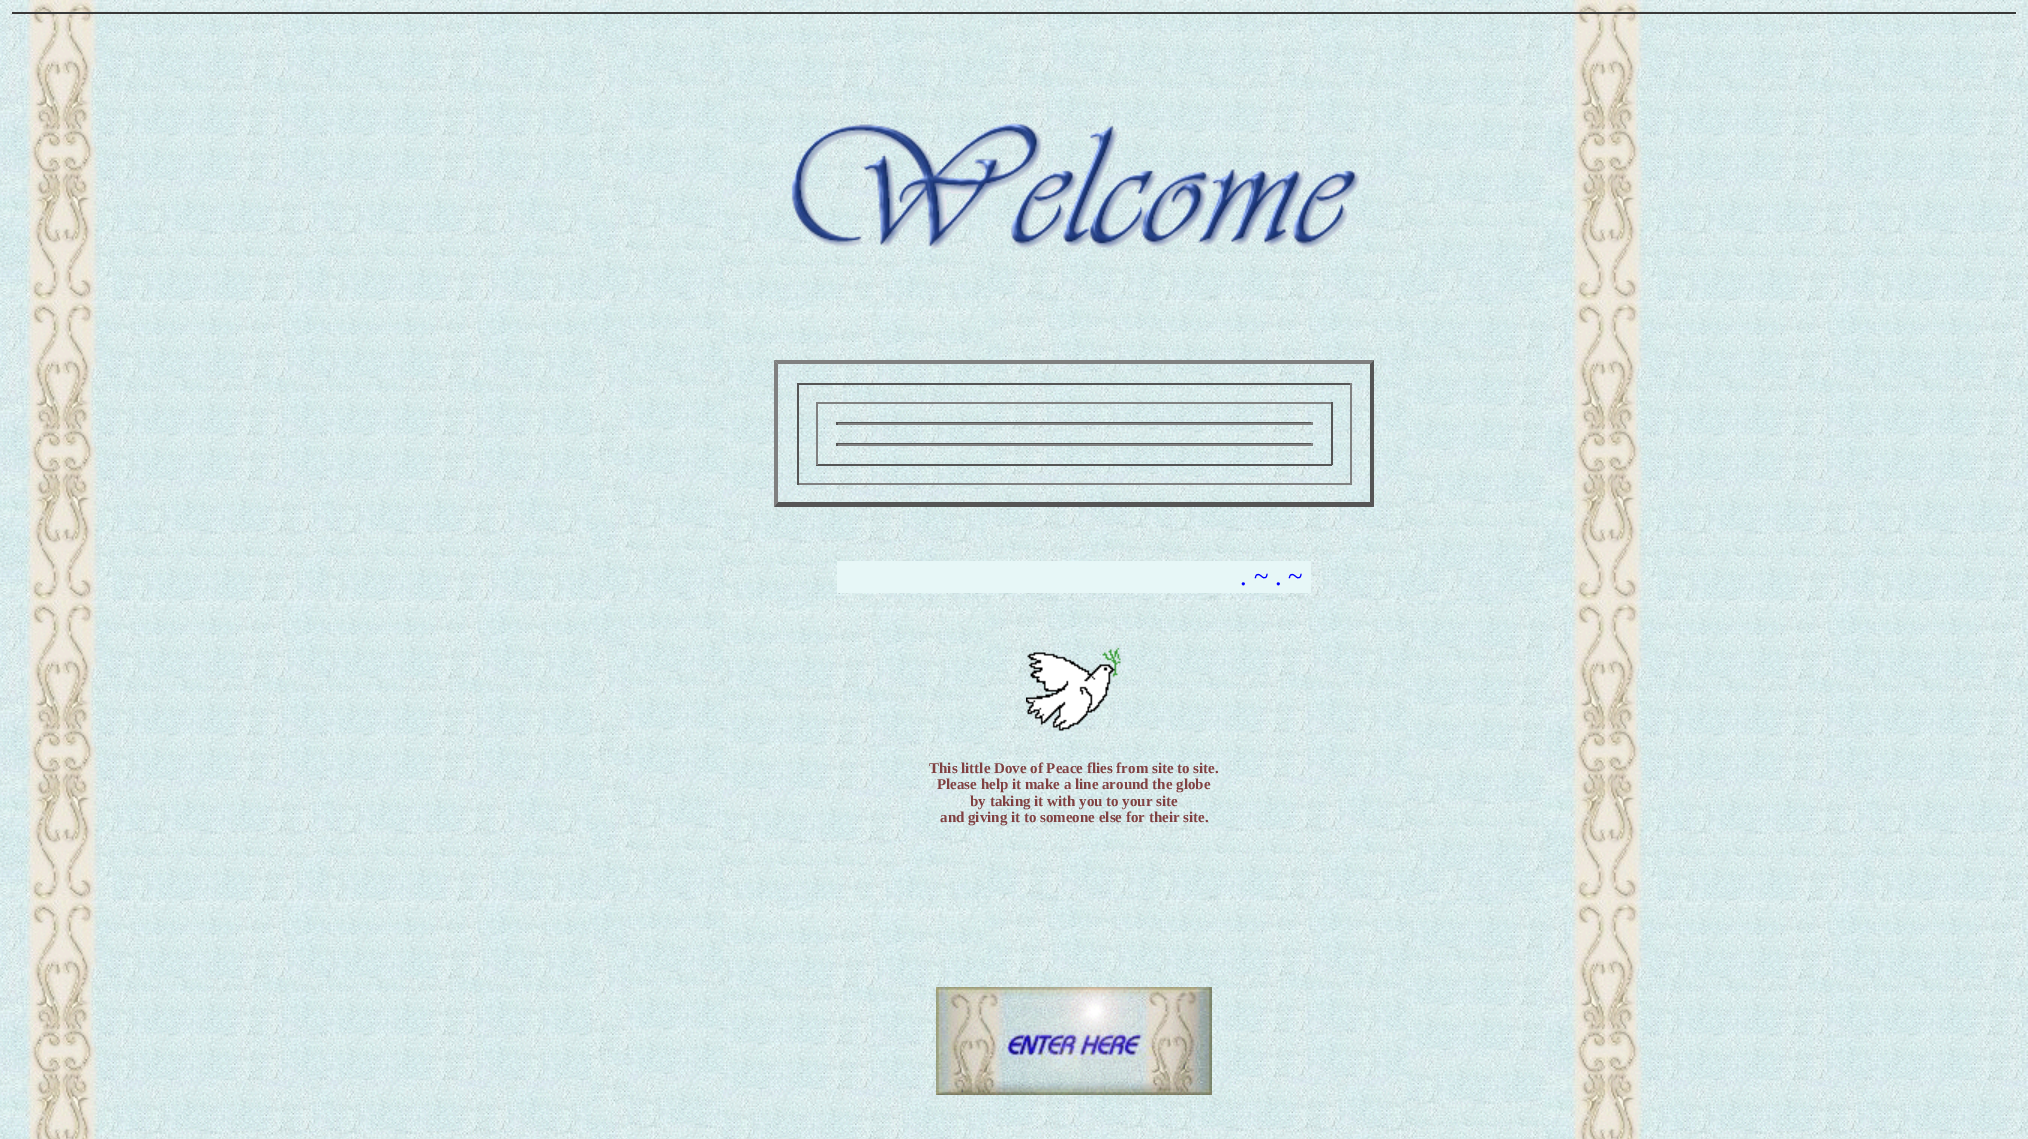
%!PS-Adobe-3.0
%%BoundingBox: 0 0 2028 1139
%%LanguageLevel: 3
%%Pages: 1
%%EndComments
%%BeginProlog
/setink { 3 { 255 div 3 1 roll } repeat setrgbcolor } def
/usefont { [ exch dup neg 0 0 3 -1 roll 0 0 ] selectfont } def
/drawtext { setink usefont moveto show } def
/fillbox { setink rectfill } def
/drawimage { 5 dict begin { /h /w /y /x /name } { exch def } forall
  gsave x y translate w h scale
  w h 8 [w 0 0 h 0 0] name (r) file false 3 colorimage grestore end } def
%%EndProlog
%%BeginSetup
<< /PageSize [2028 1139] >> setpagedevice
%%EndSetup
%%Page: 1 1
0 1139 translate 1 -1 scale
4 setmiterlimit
0 0 2028 1139 255 255 255 fillbox
(assets/img1.rgb) 0 0 2028 1139 drawimage
12 12 2004 2 57 57 57 fillbox
(assets/img2.rgb) 791 123 569 126 drawimage
128 128 128 setink
774 360 moveto 1374 360 lineto 1370 364 lineto 778 364 lineto closepath fill
85 85 85 setink
1374 360 moveto 1374 507 lineto 1370 502 lineto 1370 364 lineto closepath fill
1374 507 moveto 774 507 lineto 778 502 lineto 1370 502 lineto closepath fill
128 128 128 setink
774 507 moveto 774 360 lineto 778 364 lineto 778 502 lineto closepath fill
797 383 555 2 85 85 85 fillbox
1350 383 2 102 128 128 128 fillbox
797 483 555 2 128 128 128 fillbox
797 383 2 102 85 85 85 fillbox
816 402 516 2 128 128 128 fillbox
1331 402 2 63 85 85 85 fillbox
816 464 516 2 85 85 85 fillbox
816 402 2 63 128 128 128 fillbox
836 422 477 1 85 85 85 fillbox
1311 422 2 3 128 128 128 fillbox
836 423 477 2 128 128 128 fillbox
836 422 2 3 85 85 85 fillbox
836 443 477 1 85 85 85 fillbox
1311 443 2 3 128 128 128 fillbox
836 444 477 2 128 128 128 fillbox
836 443 2 3 85 85 85 fillbox
837 561 474 32 231 247 247 fillbox
(. ~ . ~) 1240 585 /LiberationSerif-Regular 27 0 0 255 drawtext
(assets/img3.rgb) 1026 647 95 84 drawimage
(This little Dove of Peace flies from site to site.) 929 773 /LiberationSerif-Bold 15 128 64 65 drawtext
(Please help it make a line around the globe) 937 789 /LiberationSerif-Bold 15 128 64 65 drawtext
(by taking it with you to your site) 970 806 /LiberationSerif-Bold 15 128 64 65 drawtext
(and giving it to someone else for their site.) 940 822 /LiberationSerif-Bold 15 128 64 65 drawtext
(assets/img4.rgb) 936 987 276 108 drawimage
showpage
%%EOF
